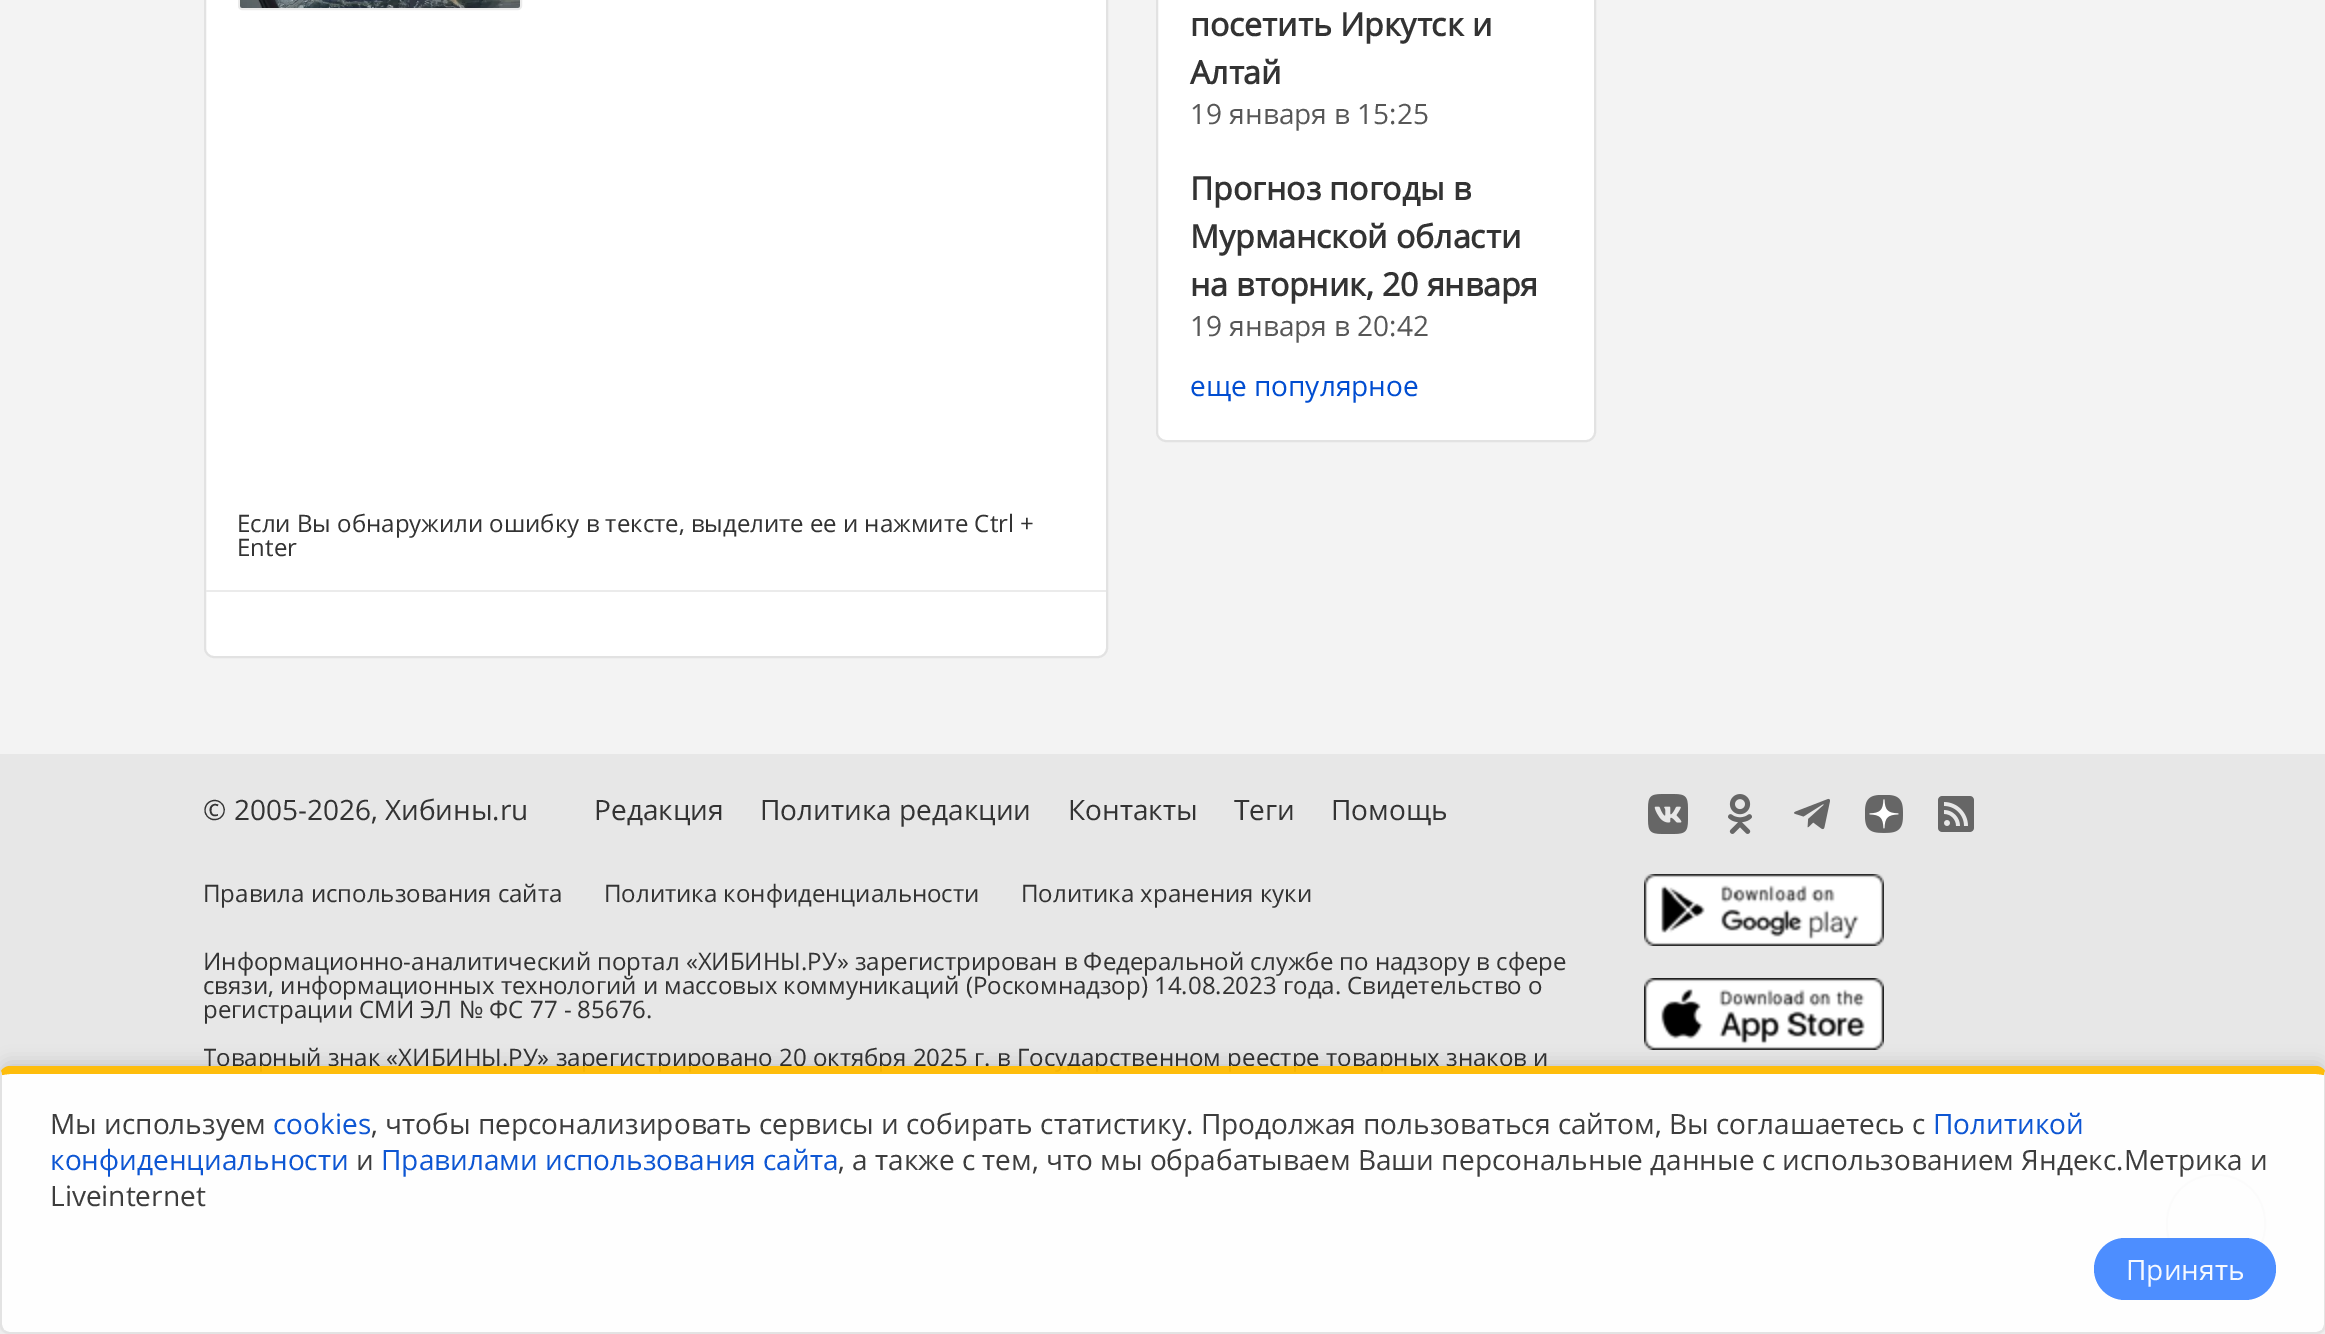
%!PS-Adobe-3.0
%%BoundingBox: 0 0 2325 1334
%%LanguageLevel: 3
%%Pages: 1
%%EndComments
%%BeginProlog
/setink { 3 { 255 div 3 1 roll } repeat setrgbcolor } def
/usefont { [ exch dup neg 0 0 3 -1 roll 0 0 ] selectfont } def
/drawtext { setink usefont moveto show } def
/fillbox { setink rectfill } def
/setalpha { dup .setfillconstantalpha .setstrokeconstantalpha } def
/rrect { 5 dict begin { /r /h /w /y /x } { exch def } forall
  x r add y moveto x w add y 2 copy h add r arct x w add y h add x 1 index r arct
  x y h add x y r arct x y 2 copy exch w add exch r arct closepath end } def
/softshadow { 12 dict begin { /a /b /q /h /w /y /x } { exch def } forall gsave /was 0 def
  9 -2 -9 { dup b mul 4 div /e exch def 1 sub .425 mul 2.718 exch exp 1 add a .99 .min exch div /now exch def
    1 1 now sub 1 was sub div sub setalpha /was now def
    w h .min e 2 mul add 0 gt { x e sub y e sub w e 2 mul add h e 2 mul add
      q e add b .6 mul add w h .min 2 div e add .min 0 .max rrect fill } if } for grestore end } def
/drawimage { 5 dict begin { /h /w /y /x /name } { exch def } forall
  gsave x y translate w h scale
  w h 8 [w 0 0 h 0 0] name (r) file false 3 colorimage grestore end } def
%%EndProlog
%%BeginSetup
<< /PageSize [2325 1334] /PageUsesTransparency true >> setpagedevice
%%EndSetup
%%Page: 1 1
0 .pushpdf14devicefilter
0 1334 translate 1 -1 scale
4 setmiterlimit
0 0 2325 1334 243 243 243 fillbox
255 255 255 setink
1157 -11 438 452 9 rrect gsave fill grestore
226 226 226 setink
2 setlinewidth
stroke
(посетить Иркутск и) 1190 36 /OpenSans-Bold 32 51 51 51 drawtext
(Алтай) 1190 84 /OpenSans-Bold 32 51 51 51 drawtext
(19 января в 15:25) 1190 124 /OpenSans-Regular 28 87 87 87 drawtext
(Прогноз погоды в) 1190 200 /OpenSans-Bold 32 51 51 51 drawtext
(Мурманской области) 1190 248 /OpenSans-Bold 32 51 51 51 drawtext
(на вторник, 20 января) 1190 296 /OpenSans-Bold 32 51 51 51 drawtext
(19 января в 20:42) 1190 336 /OpenSans-Regular 28 87 87 87 drawtext
(еще популярное) 1190 396 /OpenSans-Regular 28 0 77 209 drawtext
255 255 255 setink
205 -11 902 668 9 rrect gsave fill grestore
226 226 226 setink
stroke
235 235 235 setink
239 -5 282 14 3 rrect stroke
(assets/img1.rgb) 240 0 280 8 drawimage
(Если Вы обнаружили ошибку в тексте, выделите ее и нажмите Ctrl +) 237 532 /OpenSans-Regular 24 51 51 51 drawtext
(Enter) 237 556 /OpenSans-Regular 24 51 51 51 drawtext
206 590 900 2 235 235 235 fillbox
0 754 2325 524 231 231 231 fillbox
(© 2005-2026, Хибины.ru) 203 820 /OpenSans-Regular 28 51 51 51 drawtext
(Редакция) 594 820 /OpenSans-Regular 28 51 51 51 drawtext
(Политика редакции) 760 820 /OpenSans-Regular 28 51 51 51 drawtext
(Контакты) 1068 820 /OpenSans-Regular 28 51 51 51 drawtext
(Теги) 1234 820 /OpenSans-Regular 28 51 51 51 drawtext
(Помощь) 1331 820 /OpenSans-Regular 28 51 51 51 drawtext
(assets/img2.rgb) 1648 794 40 40 drawimage
(assets/img3.rgb) 1728 794 24 40 drawimage
(assets/img4.rgb) 1794 798 36 32 drawimage
(assets/img5.rgb) 1865 795 38 38 drawimage
(assets/img6.rgb) 1938 796 36 36 drawimage
(assets/img7.rgb) 1644 874 240 72 drawimage
(assets/img8.rgb) 1644 978 240 72 drawimage
(Правила использования сайта) 203 902 /OpenSans-Regular 24 51 51 51 drawtext
(Политика конфиденциальности) 604 902 /OpenSans-Regular 24 51 51 51 drawtext
(Политика хранения куки) 1021 902 /OpenSans-Regular 24 51 51 51 drawtext
(Информационно-аналитический портал «ХИБИНЫ.РУ» зарегистрирован в Федеральной службе по надзору в сфере) 203 970 /OpenSans-Regular 24 51 51 51 drawtext
(связи, информационных технологий и массовых коммуникаций \(Роскомнадзор\) 14.08.2023 года. Свидетельство о) 203 994 /OpenSans-Regular 24 51 51 51 drawtext
(регистрации СМИ ЭЛ № ФС 77 - 85676.) 203 1018 /OpenSans-Regular 24 51 51 51 drawtext
gsave
204 754 1920 490 rectclip
(Товарный знак «ХИБИНЫ.РУ» зарегистрировано 20 октября 2025 г. в Государственном реестре товарных знаков и) 203 1066 /OpenSans-Regular 24 51 51 51 drawtext
grestore
204 1276 1920 2 235 235 235 fillbox
243 243 243 setink
2167 1175 98 98 47 rrect gsave fill grestore
184 184 184 setink
stroke
gsave
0 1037 moveto 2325 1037 lineto 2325 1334 lineto 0 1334 lineto closepath 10 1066 moveto 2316 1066 lineto 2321.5 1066 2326 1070.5 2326 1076 curveto 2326 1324 lineto 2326 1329.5 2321.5 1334 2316 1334 curveto 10 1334 lineto 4.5 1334 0 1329.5 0 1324 curveto 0 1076 lineto 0 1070.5 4.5 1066 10 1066 curveto closepath eoclip newpath
0 0 0 setink
0 1062 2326 268 10 8 0.14 softshadow
grestore
0.95 setalpha
255 255 255 setink
10 1074 moveto 2316 1074 lineto 2320 1074 2324 1075 2324 1076 curveto 2324 1324 lineto 2324 1328 2320 1332 2316 1332 curveto 10 1332 lineto 6 1332 2 1328 2 1324 curveto 2 1076 lineto 2 1075 6 1074 10 1074 curveto closepath fill
255 187 0 setink
10 1066 moveto 6 1066 3 1068 1 1071 curveto 2 1075 lineto 3 1075 7 1074 10 1074 curveto 2316 1074 lineto 2319 1074 2323 1075 2324 1075 curveto 2325 1071 lineto 2323 1068 2320 1066 2316 1066 curveto closepath fill
226 226 226 setink
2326 1324 moveto 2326 1076 lineto 2325 1071 lineto 2324 1075 lineto 2324 1076 lineto 2324 1324 lineto 2324 1326 2323 1328 2322 1330 curveto 2323 1331 lineto 2325 1330 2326 1327 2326 1324 curveto closepath fill
1 setalpha
227 227 227 setink
10 1334 moveto 2316 1334 lineto 2319 1334 2322 1333 2323 1331 curveto 2322 1330 lineto 2320 1331 2318 1332 2316 1332 curveto 10 1332 lineto 8 1332 6 1331 4 1330 curveto 3 1331 lineto 4 1333 7 1334 10 1334 curveto closepath fill
0.95 setalpha
226 226 226 setink
0 1076 moveto 0 1324 lineto 0 1327 1 1330 3 1331 curveto 4 1330 lineto 3 1328 2 1326 2 1324 curveto 2 1076 lineto 2 1075 lineto 1 1071 lineto closepath fill
1 setalpha
(Мы используем) 50 1134 /OpenSans-Regular 28 61 61 61 drawtext
(cookies) 273 1134 /OpenSans-Regular 28 13 86 211 drawtext
(, чтобы персонализировать сервисы и собирать статистику. Продолжая пользоваться сайтом, Вы соглашаетесь с) 371 1134 /OpenSans-Regular 28 61 61 61 drawtext
(Политикой) 1933 1134 /OpenSans-Regular 28 13 86 211 drawtext
(конфиденциальности) 50 1170 /OpenSans-Regular 28 13 86 211 drawtext
(и) 356 1170 /OpenSans-Regular 28 61 61 61 drawtext
(Правилами использования сайта) 381 1170 /OpenSans-Regular 28 13 86 211 drawtext
(, а также с тем, что мы обрабатываем Ваши персональные данные с использованием Яндекс.Метрика и) 838 1170 /OpenSans-Regular 28 61 61 61 drawtext
(Liveinternet) 50 1206 /OpenSans-Regular 28 61 61 61 drawtext
0.95 setalpha
68 136 255 setink
2094 1238 182 62 31 rrect fill
1 setalpha
(Принять) 2126 1280 /OpenSans-Regular 28 246 249 255 drawtext
.poppdf14devicefilter showpage
%%EOF
